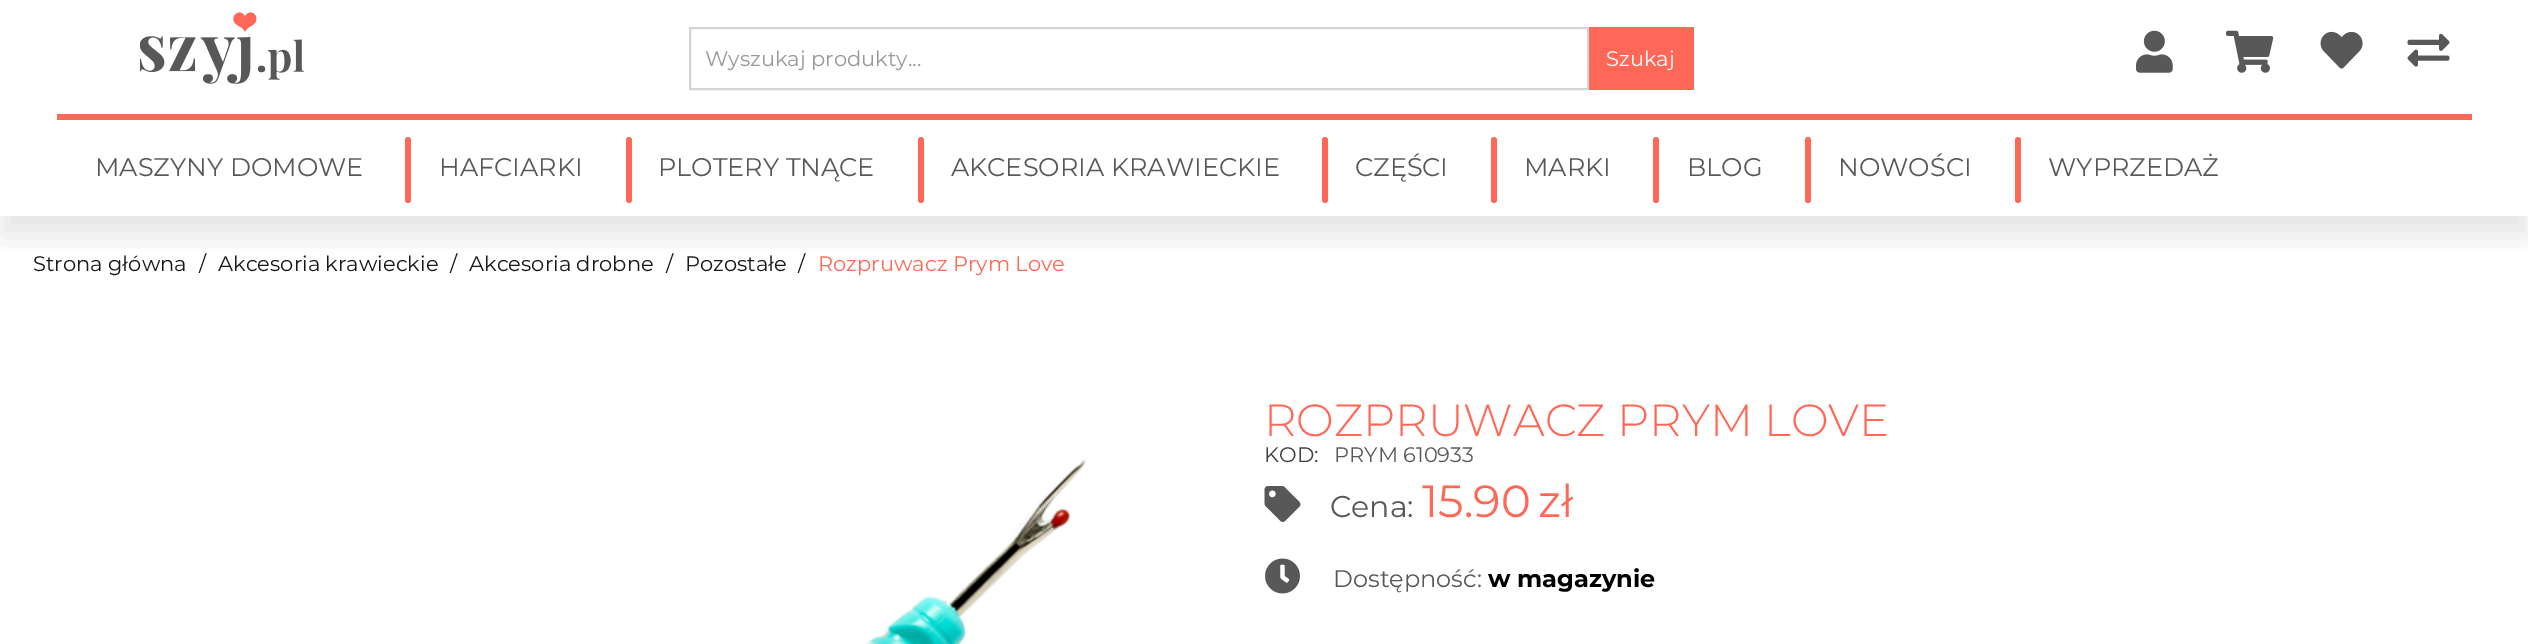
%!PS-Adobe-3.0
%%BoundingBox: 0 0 2528 644
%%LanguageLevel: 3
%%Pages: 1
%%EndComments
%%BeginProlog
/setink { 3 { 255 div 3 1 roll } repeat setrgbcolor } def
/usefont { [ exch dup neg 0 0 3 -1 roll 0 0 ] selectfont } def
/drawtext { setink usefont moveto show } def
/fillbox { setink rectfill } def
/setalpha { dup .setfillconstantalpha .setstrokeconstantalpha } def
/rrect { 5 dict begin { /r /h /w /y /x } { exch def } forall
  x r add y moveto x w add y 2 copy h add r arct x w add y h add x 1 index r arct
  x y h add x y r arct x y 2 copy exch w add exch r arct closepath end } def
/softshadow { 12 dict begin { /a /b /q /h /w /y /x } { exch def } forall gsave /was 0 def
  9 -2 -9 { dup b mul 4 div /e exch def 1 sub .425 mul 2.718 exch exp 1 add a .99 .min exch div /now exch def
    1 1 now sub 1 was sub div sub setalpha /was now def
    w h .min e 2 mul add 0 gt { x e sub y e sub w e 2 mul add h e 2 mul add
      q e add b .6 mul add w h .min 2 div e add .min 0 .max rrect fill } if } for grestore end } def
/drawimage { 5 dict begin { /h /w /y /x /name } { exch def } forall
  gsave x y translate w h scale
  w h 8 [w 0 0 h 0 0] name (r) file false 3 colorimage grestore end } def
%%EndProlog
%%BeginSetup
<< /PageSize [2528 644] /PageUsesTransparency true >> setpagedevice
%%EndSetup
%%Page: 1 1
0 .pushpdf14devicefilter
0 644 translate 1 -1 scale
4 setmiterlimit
0 0 2528 644 255 255 255 fillbox
gsave
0 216 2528 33 rectclip
0 0 0 setink
0 20 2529 216 0 15 0.1 softshadow
grestore
(assets/img1.rgb) 140 12 165 72 drawimage
213 213 213 setink
2 setlinewidth
690 28 898 61 rectstroke
(Wyszukaj produkty...) 705 66 /Montserrat-Regular 21 152 152 152 drawtext
1589 27 105 63 255 104 87 fillbox
(Szukaj) 1606 66 /Montserrat-Regular 21 255 255 255 drawtext
(assets/img2.rgb) 2136 30 37 43 drawimage
(assets/img3.rgb) 2226 30 48 43 drawimage
(assets/img4.rgb) 2320 31 43 38 drawimage
(assets/img5.rgb) 2407 33 43 34 drawimage
57 114 2415 6 255 104 87 fillbox
(MASZYNY DOMOWE) 95 176 /Montserrat-Regular 25.5 88 88 88 drawtext
255 104 87 setink
405 137 6 66 3 rrect fill
(HAFCIARKI) 439 176 /Montserrat-Regular 25.5 88 88 88 drawtext
255 104 87 setink
626 137 6 66 3 rrect fill
(PLOTERY TNĄCE) 658 176 /Montserrat-Regular 25.5 88 88 88 drawtext
255 104 87 setink
918 137 6 66 3 rrect fill
(AKCESORIA KRAWIECKIE) 951 176 /Montserrat-Regular 25.5 88 88 88 drawtext
255 104 87 setink
1322 137 6 66 3 rrect fill
(CZĘŚCI) 1355 176 /Montserrat-Regular 25.5 88 88 88 drawtext
255 104 87 setink
1491 137 6 66 3 rrect fill
(MARKI) 1524 176 /Montserrat-Regular 25.5 88 88 88 drawtext
255 104 87 setink
1653 137 6 66 3 rrect fill
(BLOG) 1687 176 /Montserrat-Regular 25.5 88 88 88 drawtext
255 104 87 setink
1805 137 6 66 3 rrect fill
(NOWOŚCI) 1838 176 /Montserrat-Regular 25.5 88 88 88 drawtext
255 104 87 setink
2015 137 6 66 3 rrect fill
(WYPRZEDAŻ) 2048 176 /Montserrat-Regular 25.5 88 88 88 drawtext
(Strona główna) 33 271 /Montserrat-Regular 21 24 24 24 drawtext
(/) 199 271 /Montserrat-Regular 21 24 24 24 drawtext
(Akcesoria krawieckie) 218 271 /Montserrat-Regular 21 24 24 24 drawtext
(/) 450 271 /Montserrat-Regular 21 24 24 24 drawtext
(Akcesoria drobne) 469 271 /Montserrat-Regular 21 24 24 24 drawtext
(/) 666 271 /Montserrat-Regular 21 24 24 24 drawtext
(Pozostałe) 685 271 /Montserrat-Regular 21 24 24 24 drawtext
(/) 798 271 /Montserrat-Regular 21 24 24 24 drawtext
(Rozpruwacz Prym Love) 818 271 /Montserrat-Regular 21 255 104 87 drawtext
(assets/img6.rgb) 865 460 221 184 drawimage
(ROZPRUWACZ PRYM LOVE) 1264 436 /Montserrat-Light 45 255 104 87 drawtext
(KOD:) 1264 462 /Montserrat-Regular 21 63 63 63 drawtext
(PRYM 610933) 1334 462 /Montserrat-Regular 21 88 88 88 drawtext
(assets/img7.rgb) 1264 486 37 36 drawimage
(Cena:) 1330 517 /Montserrat-Regular 30 88 88 88 drawtext
(15.90) 1422 517 /Montserrat-Regular 45 255 104 87 drawtext
(zł) 1538 517 /Montserrat-Regular 45 255 104 87 drawtext
(assets/img8.rgb) 1265 558 35 36 drawimage
(Dostępność:) 1333 587 /Montserrat-Regular 24 88 88 88 drawtext
(w magazynie) 1488 587 /Montserrat-Bold 24 0 0 0 drawtext
.poppdf14devicefilter showpage
%%EOF
